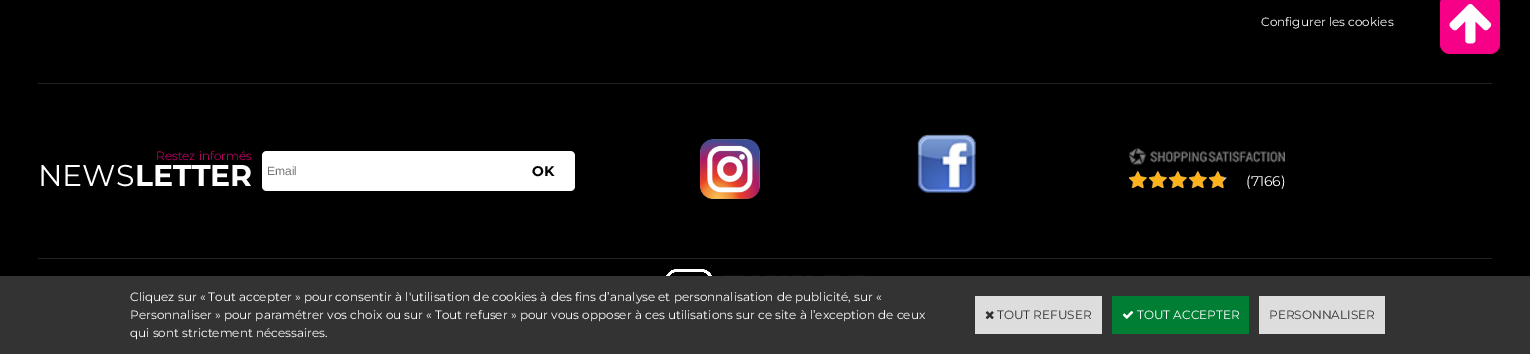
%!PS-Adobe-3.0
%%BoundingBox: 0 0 1530 354
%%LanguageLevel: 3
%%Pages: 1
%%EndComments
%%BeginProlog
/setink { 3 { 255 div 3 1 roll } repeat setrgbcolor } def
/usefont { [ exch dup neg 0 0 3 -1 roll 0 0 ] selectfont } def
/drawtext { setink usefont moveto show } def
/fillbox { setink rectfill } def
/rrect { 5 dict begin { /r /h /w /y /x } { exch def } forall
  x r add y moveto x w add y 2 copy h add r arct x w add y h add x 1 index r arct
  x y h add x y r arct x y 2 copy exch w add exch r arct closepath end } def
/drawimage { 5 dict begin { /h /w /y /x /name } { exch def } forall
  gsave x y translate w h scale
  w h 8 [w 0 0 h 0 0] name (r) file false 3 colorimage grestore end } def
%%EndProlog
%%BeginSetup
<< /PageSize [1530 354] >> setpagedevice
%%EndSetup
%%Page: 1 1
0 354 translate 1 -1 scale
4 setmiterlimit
0 0 1530 354 0 0 0 fillbox
(Configurer les cookies) 1261 26 /Montserrat-Regular 12 255 255 255 drawtext
38 83 1454 1 34 34 34 fillbox
38 258 1454 1 34 34 34 fillbox
(Restez informés) 156 160 /Montserrat-Light 12 246 0 135 drawtext
(NEWS) 38 186 /Montserrat-Regular 30 255 255 255 drawtext
(LETTER) 135 186 /Montserrat-Bold 30 255 255 255 drawtext
267 151 moveto 512 151 lineto 512 191 lineto 267 191 lineto 264 191 262 189 262 186 curveto 262 156 lineto 262 153 264 151 267 151 curveto closepath fill
(Email) 267 175 /LiberationSans-Regular 12 117 117 117 drawtext
255 255 255 setink
512 151 moveto 570 151 lineto 573 151 575 153 575 156 curveto 575 186 lineto 575 189 573 191 570 191 curveto 512 191 lineto closepath fill
(OK) 532 176 /Montserrat-Bold 14 0 0 0 drawtext
(assets/img1.rgb) 700 139 60 60 drawimage
(assets/img2.rgb) 917 134 59 59 drawimage
(assets/img3.rgb) 1129 147 156 18 drawimage
(assets/img4.rgb) 1129 171 98 17 drawimage
(assets/img5.rgb) 1129 171 95 17 drawimage
(\(7166\)) 1246 186 /Montserrat-Regular 14 255 255 255 drawtext
(assets/img6.rgb) 666 269 199 7 drawimage
246 0 135 setink
1440 -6 60 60 10 rrect fill
(assets/img7.rgb) 1449 4 43 40 drawimage
0 276 1530 78 51 51 51 fillbox
(Cliquez sur « Tout accepter » pour consentir à l'utilisation de cookies à des fins d’analyse et personnalisation de publicité, sur «) 130 301 /Montserrat-Regular 12 255 255 255 drawtext
(Personnaliser » pour paramétrer vos choix ou sur « Tout refuser » pour vous opposer à ces utilisations sur ce site à l’exception de ceux) 130 319 /Montserrat-Regular 12 255 255 255 drawtext
(qui sont strictement nécessaires.) 130 337 /Montserrat-Regular 12 255 255 255 drawtext
975 296 127 38 221 221 221 fillbox
(assets/img8.rgb) 985 311 9 9 drawimage
(TOUT REFUSER) 997 319 /Montserrat-Regular 12 51 51 51 drawtext
1112 296 137 38 0 126 51 fillbox
(assets/img9.rgb) 1122 311 12 8 drawimage
(TOUT ACCEPTER) 1137 319 /Montserrat-Regular 12 255 255 255 drawtext
1259 296 126 38 221 221 221 fillbox
(PERSONNALISER) 1269 319 /Montserrat-Regular 12 51 51 51 drawtext
showpage
%%EOF
